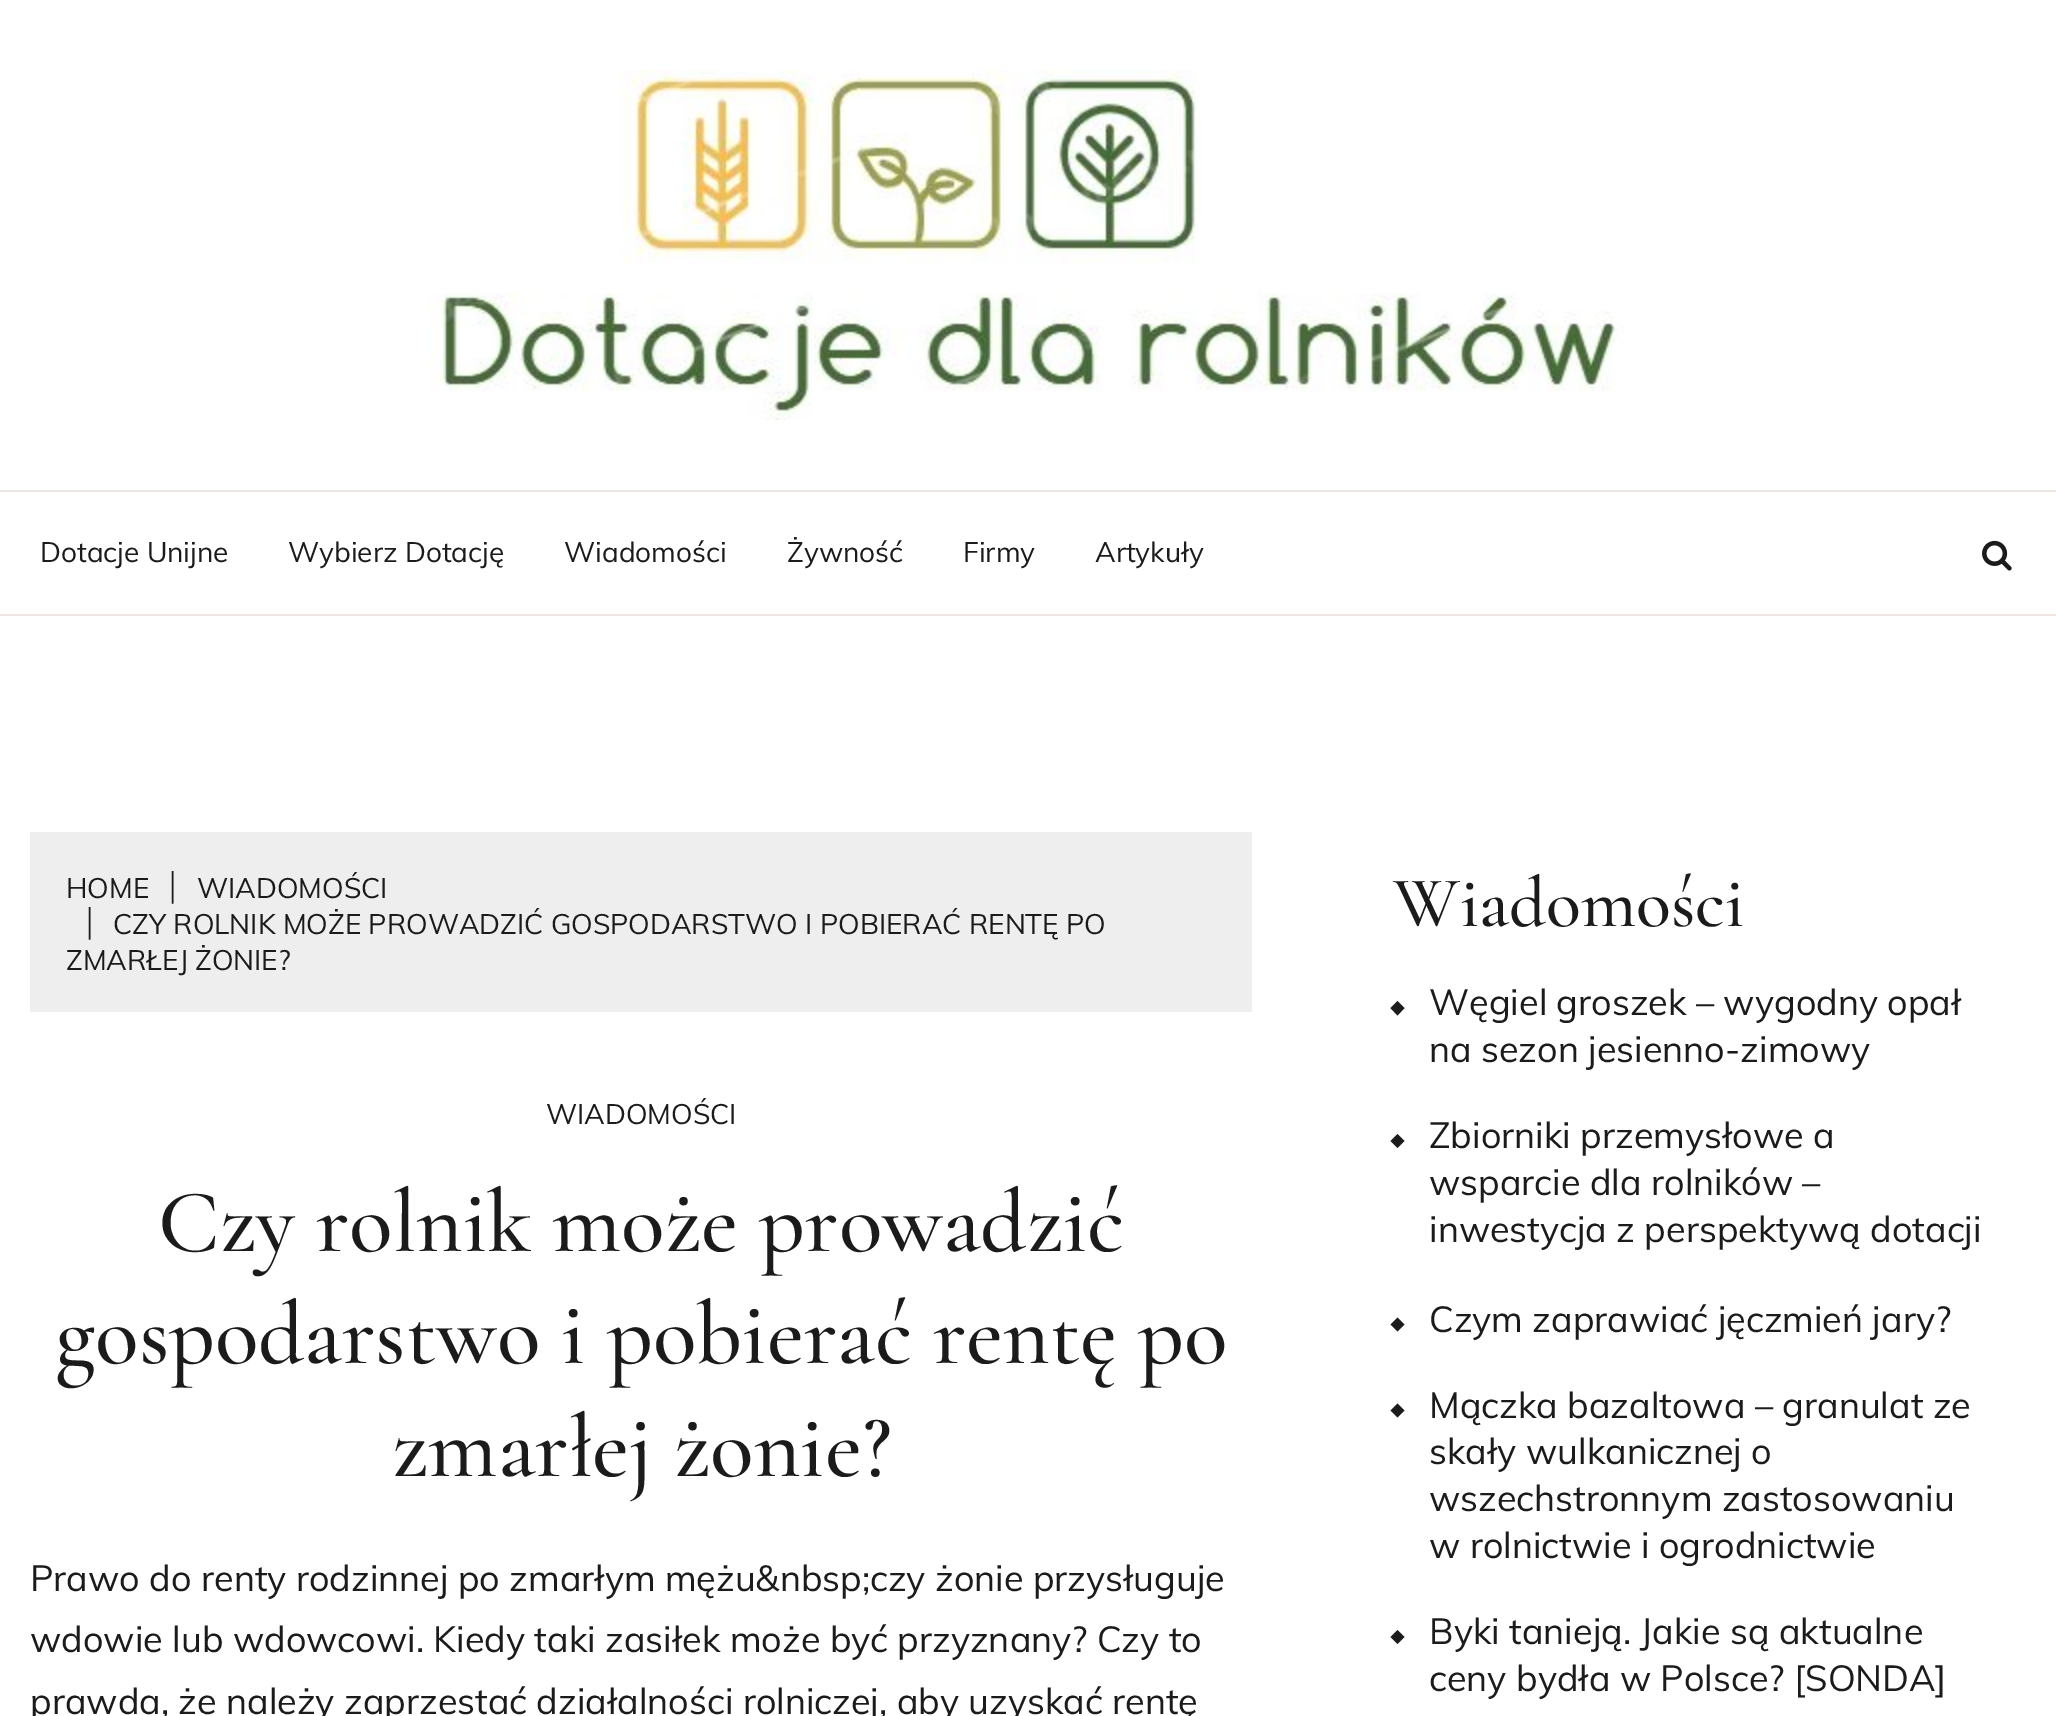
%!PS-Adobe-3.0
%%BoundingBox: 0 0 2056 1716
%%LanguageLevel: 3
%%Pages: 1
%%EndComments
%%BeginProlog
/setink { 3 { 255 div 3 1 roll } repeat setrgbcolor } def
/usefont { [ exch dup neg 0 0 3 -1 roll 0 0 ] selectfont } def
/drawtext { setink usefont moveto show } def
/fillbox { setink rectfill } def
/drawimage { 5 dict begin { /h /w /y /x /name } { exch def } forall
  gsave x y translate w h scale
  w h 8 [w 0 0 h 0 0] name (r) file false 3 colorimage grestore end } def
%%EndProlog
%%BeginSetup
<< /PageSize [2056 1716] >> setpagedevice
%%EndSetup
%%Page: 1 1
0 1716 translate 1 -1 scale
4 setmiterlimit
0 0 2056 1716 255 255 255 fillbox
(assets/img1.rgb) 428 70 1196 350 drawimage
0 490 2056 2 238 230 226 fillbox
0 614 2056 2 238 230 226 fillbox
(Dotacje Unijne) 40 562 /Muli-Regular 28 27 27 27 drawtext
(Wybierz Dotację) 288 562 /Muli-Regular 28 27 27 27 drawtext
(Wiadomości) 564 562 /Muli-Regular 28 27 27 27 drawtext
(Żywność) 787 562 /Muli-Regular 28 27 27 27 drawtext
(Firmy) 963 562 /Muli-Regular 28 27 27 27 drawtext
(Artykuły) 1095 562 /Muli-Regular 28 27 27 27 drawtext
(assets/img2.rgb) 1982 540 30 31 drawimage
30 832 1222 180 238 238 238 fillbox
(HOME) 66 898 /Muli-Regular 28 27 27 27 drawtext
(|) 169 896 /LiberationSerif-Regular 36 27 27 27 drawtext
(WIADOMOŚCI) 197 898 /Muli-Regular 28 27 27 27 drawtext
(|) 86 932 /LiberationSerif-Regular 36 27 27 27 drawtext
(CZY ROLNIK MOŻE PROWADZIĆ GOSPODARSTWO I POBIERAĆ RENTĘ PO) 113 934 /Muli-Regular 28 27 27 27 drawtext
(ZMARŁEJ ŻONIE?) 66 970 /Muli-Regular 28 27 27 27 drawtext
(WIADOMOŚCI) 546 1124 /Muli-Regular 28 27 27 27 drawtext
(Czy rolnik może prowadzić) 158 1251 /CormorantGaramond-Medium 90 27 27 27 drawtext
(gospodarstwo i pobierać rentę po) 55 1363 /CormorantGaramond-Medium 90 27 27 27 drawtext
(zmarłej żonie?) 392 1476 /CormorantGaramond-Medium 90 27 27 27 drawtext
(Prawo do renty rodzinnej po zmarłym mężu&nbsp;czy żonie przysługuje) 30 1591 /Muli-Regular 36 27 27 27 drawtext
(wdowie lub wdowcowi. Kiedy taki zasiłek może być przyznany? Czy to) 30 1652 /Muli-Regular 36 27 27 27 drawtext
(prawda, że należy zaprzestać działalności rolniczej, aby uzyskać rentę) 30 1714 /Muli-Regular 36 27 27 27 drawtext
(Wiadomości) 1393 926 /CormorantGaramond-Medium 72 27 27 27 drawtext
1397.5 1001 moveto 1404.5 1008 lineto 1397.5 1015.5 lineto 1390.5 1008 lineto closepath fill
(Węgiel groszek – wygodny opał) 1429 1015 /Muli-Regular 36 27 27 27 drawtext
(na sezon jesienno-zimowy) 1429 1062 /Muli-Regular 36 27 27 27 drawtext
1397.5 1134 moveto 1404.5 1141 lineto 1397.5 1148 lineto 1390.5 1141 lineto closepath fill
(Zbiorniki przemysłowe a) 1429 1148 /Muli-Regular 36 27 27 27 drawtext
(wsparcie dla rolników –) 1429 1195 /Muli-Regular 36 27 27 27 drawtext
(inwestycja z perspektywą dotacji) 1429 1242 /Muli-Regular 36 27 27 27 drawtext
1397.5 1317.5 moveto 1404.5 1324.5 lineto 1397.5 1331.5 lineto 1390.5 1324.5 lineto closepath fill
(Czym zaprawiać jęczmień jary?) 1429 1332 /Muli-Regular 36 27 27 27 drawtext
1397.5 1403.5 moveto 1404.5 1410.5 lineto 1397.5 1417.5 lineto 1390.5 1410.5 lineto closepath fill
(Mączka bazaltowa – granulat ze) 1429 1418 /Muli-Regular 36 27 27 27 drawtext
(skały wulkanicznej o) 1429 1464 /Muli-Regular 36 27 27 27 drawtext
(wszechstronnym zastosowaniu) 1429 1511 /Muli-Regular 36 27 27 27 drawtext
(w rolnictwie i ogrodnictwie) 1429 1558 /Muli-Regular 36 27 27 27 drawtext
1397.5 1630 moveto 1404.5 1637 lineto 1397.5 1644 lineto 1390.5 1637 lineto closepath fill
(Byki tanieją. Jakie są aktualne) 1429 1644 /Muli-Regular 36 27 27 27 drawtext
(ceny bydła w Polsce? [SONDA]) 1429 1691 /Muli-Regular 36 27 27 27 drawtext
showpage
%%EOF
